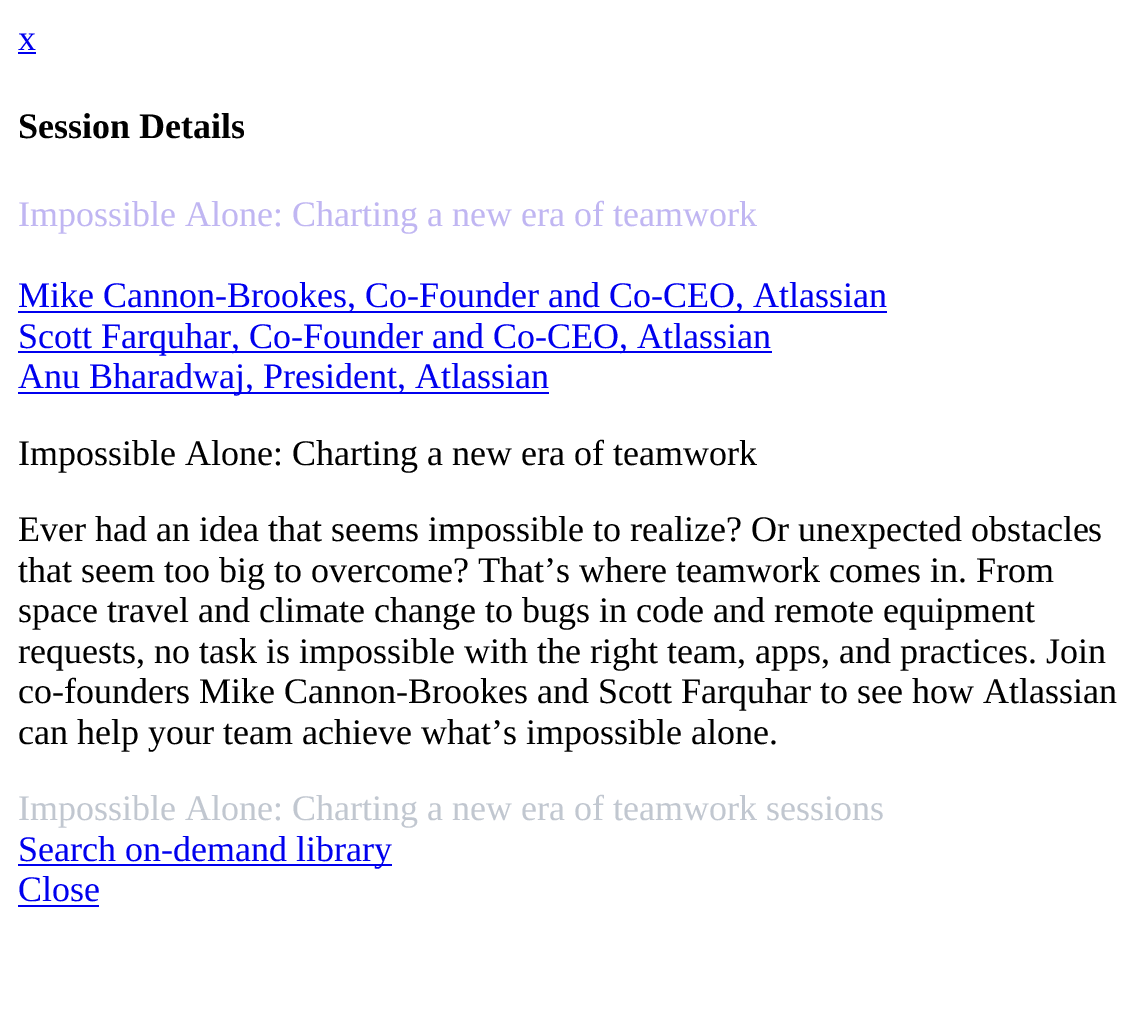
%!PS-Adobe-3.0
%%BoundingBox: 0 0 1136 1011
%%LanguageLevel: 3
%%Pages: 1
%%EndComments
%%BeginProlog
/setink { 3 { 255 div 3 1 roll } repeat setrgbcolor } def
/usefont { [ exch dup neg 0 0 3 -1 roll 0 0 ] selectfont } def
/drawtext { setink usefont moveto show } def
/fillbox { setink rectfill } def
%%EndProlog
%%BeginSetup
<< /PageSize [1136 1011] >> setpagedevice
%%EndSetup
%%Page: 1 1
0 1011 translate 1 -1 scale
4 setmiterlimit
0 0 1136 1011 255 255 255 fillbox
(x) 18 50 /LiberationSerif-Regular 36 0 0 238 drawtext
18 52 18 2 0 0 238 fillbox
(Session Details) 18 138 /LiberationSerif-Bold 36 0 0 0 drawtext
(Impossible Alone: Charting a new era of teamwork) 18 226 /LiberationSerif-Regular 36 192 182 242 drawtext
18 311 869 2 0 0 238 fillbox
(Mike Cannon-Brookes, Co-Founder and Co-CEO, Atlassian) 18 307 /LiberationSerif-Regular 36 0 0 238 drawtext
18 351 754 2 0 0 238 fillbox
(Scott Farquhar, Co-Founder and Co-CEO, Atlassian) 18 348 /LiberationSerif-Regular 36 0 0 238 drawtext
18 392 531 2 0 0 238 fillbox
(Anu Bharadwaj, President, Atlassian) 18 388 /LiberationSerif-Regular 36 0 0 238 drawtext
(Impossible Alone: Charting a new era of teamwork) 18 465 /LiberationSerif-Regular 36 0 0 0 drawtext
(Ever had an idea that seems impossible to realize? Or unexpected obstacles) 18 541 /LiberationSerif-Regular 36 0 0 0 drawtext
(that seem too big to overcome? That’s where teamwork comes in. From) 18 582 /LiberationSerif-Regular 36 0 0 0 drawtext
(space travel and climate change to bugs in code and remote equipment) 18 622 /LiberationSerif-Regular 36 0 0 0 drawtext
(requests, no task is impossible with the right team, apps, and practices. Join) 18 663 /LiberationSerif-Regular 36 0 0 0 drawtext
(co-founders Mike Cannon-Brookes and Scott Farquhar to see how Atlassian) 18 703 /LiberationSerif-Regular 36 0 0 0 drawtext
(can help your team achieve what’s impossible alone.) 18 744 /LiberationSerif-Regular 36 0 0 0 drawtext
(Impossible Alone: Charting a new era of teamwork sessions) 18 820 /LiberationSerif-Regular 36 193 199 208 drawtext
18 864 374 2 0 0 238 fillbox
(Search on-demand library) 18 861 /LiberationSerif-Regular 36 0 0 238 drawtext
(Close) 18 901 /LiberationSerif-Regular 36 0 0 238 drawtext
18 905 81 2 0 0 238 fillbox
showpage
%%EOF
